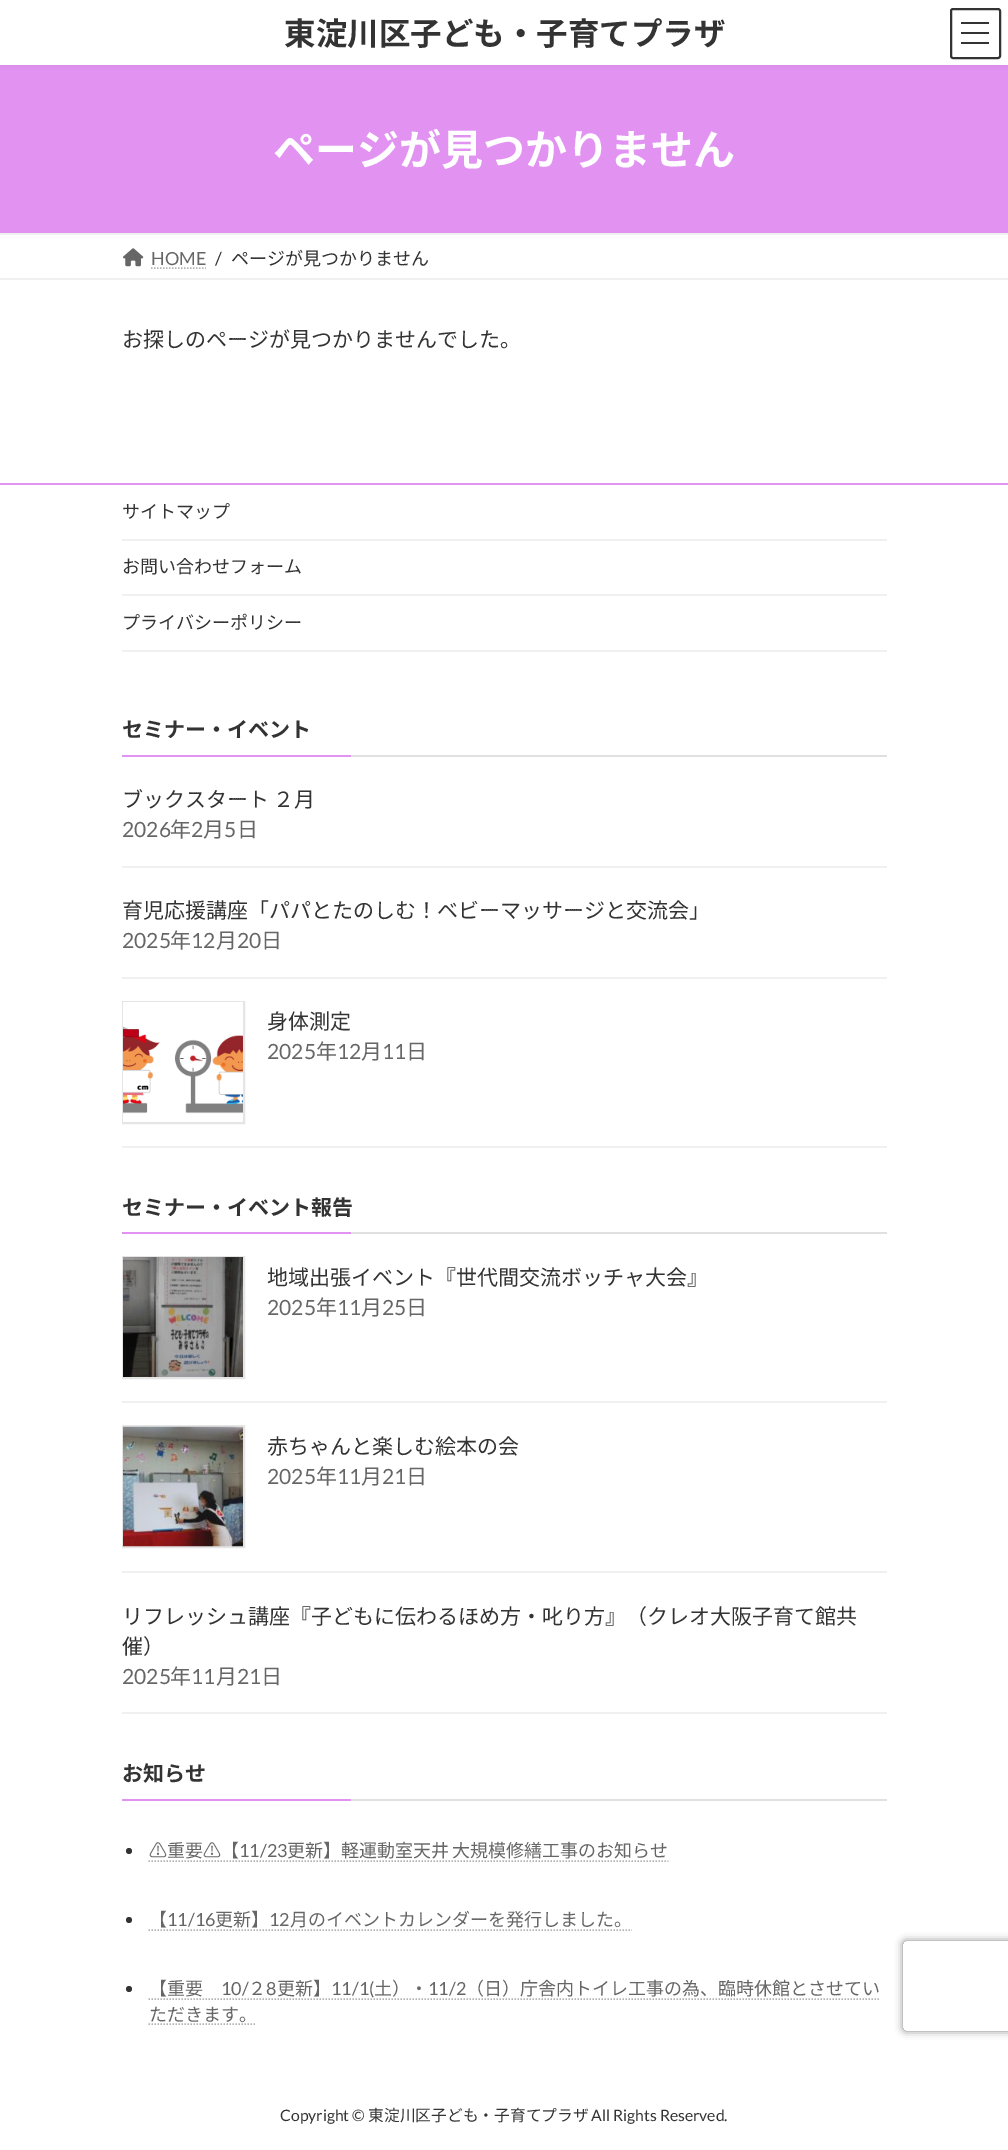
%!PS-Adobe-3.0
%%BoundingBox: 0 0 1008 2150
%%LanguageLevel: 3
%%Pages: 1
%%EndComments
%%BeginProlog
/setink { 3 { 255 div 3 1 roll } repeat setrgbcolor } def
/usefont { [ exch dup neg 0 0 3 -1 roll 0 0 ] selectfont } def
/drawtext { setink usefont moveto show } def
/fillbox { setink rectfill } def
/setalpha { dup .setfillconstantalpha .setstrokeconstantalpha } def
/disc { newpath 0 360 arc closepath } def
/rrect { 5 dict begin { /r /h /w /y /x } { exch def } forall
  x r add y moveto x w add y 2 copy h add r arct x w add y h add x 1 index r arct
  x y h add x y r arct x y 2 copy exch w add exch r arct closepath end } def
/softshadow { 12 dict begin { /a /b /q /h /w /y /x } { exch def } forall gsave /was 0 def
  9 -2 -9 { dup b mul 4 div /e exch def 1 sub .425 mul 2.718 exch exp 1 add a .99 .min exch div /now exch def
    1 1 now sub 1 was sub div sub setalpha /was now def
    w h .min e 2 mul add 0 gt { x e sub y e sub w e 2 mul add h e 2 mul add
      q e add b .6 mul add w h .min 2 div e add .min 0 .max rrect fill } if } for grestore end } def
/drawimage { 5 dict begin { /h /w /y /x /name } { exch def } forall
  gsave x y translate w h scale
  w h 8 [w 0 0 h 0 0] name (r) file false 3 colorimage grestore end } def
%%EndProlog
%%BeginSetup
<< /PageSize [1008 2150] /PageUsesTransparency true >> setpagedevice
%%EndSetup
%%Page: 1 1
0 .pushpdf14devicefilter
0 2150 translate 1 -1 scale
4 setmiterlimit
0 0 1008 2150 255 255 255 fillbox
0 65 1008 168 226 147 242 fillbox
0 0 0 setink
0 2 1008 64 0 2 0.05 softshadow
0 0 1008 65 255 255 255 fillbox
(東淀川区子ども・子育てプラザ) 284 45 /NotoSansJP-Bold 31.5 51 51 51 drawtext
961 22 28 2 51 51 51 fillbox
961 32 28 2 51 51 51 fillbox
961 42 28 2 51 51 51 fillbox
2 setlinewidth
951 9 49 49 2 rrect stroke
(ページが見つかりません) 273 165 /NotoSansJP-Bold 42 255 255 255 drawtext
0 233 1008 2 240 240 240 fillbox
0 278 1008 2 240 240 240 fillbox
(assets/img1.rgb) 123 248 21 19 drawimage
(HOME) 151 265 /Lato-Regular 18 102 102 102 drawtext
179 179 179 setink
1.5 setlinewidth
[1.5 1.5] 0 setdash
151 268 moveto 206 268 lineto stroke
(/) 215 265 /Lato-Regular 18 51 51 51 drawtext
(ページが見つかりません) 231 265 /NotoSansJP-Regular 18 51 51 51 drawtext
(お探しのページが見つかりませんでした。) 122 347 /NotoSansJP-Regular 21 51 51 51 drawtext
0 483 1008 2 226 147 242 fillbox
122 539 765 2 240 240 240 fillbox
(サイトマップ) 122 518 /NotoSansJP-Regular 18 51 51 51 drawtext
122 594 765 2 240 240 240 fillbox
(お問い合わせフォーム) 122 573 /NotoSansJP-Regular 18 51 51 51 drawtext
122 650 765 2 240 240 240 fillbox
(プライバシーポリシー) 122 629 /NotoSansJP-Regular 18 51 51 51 drawtext
351 755 536 2 224 224 224 fillbox
(セミナー・イベント) 122 737 /NotoSansJP-Bold 21 51 51 51 drawtext
122 755 229 2 226 147 242 fillbox
122 866 765 2 240 240 240 fillbox
/NotoSansJP-Regular 21 usefont
51 51 51 setink
122 807 moveto -1 0 32 (ブックスタート ２月) widthshow
(2026) 122 837 /Lato-Regular 21 102 102 102 drawtext
(年) 170 837 /NotoSansJP-Regular 21 102 102 102 drawtext
(2) 191 837 /Lato-Regular 21 102 102 102 drawtext
(月) 203 837 /NotoSansJP-Regular 21 102 102 102 drawtext
(5) 224 837 /Lato-Regular 21 102 102 102 drawtext
(日) 237 837 /NotoSansJP-Regular 21 102 102 102 drawtext
122 977 765 2 240 240 240 fillbox
(育児応援講座「パパとたのしむ！ベビーマッサージと交流会」) 122 918 /NotoSansJP-Regular 21 51 51 51 drawtext
(2025) 122 948 /Lato-Regular 21 102 102 102 drawtext
(年) 170 948 /NotoSansJP-Regular 21 102 102 102 drawtext
(12) 191 948 /Lato-Regular 21 102 102 102 drawtext
(月) 216 948 /NotoSansJP-Regular 21 102 102 102 drawtext
(20) 237 948 /Lato-Regular 21 102 102 102 drawtext
(日) 261 948 /NotoSansJP-Regular 21 102 102 102 drawtext
122 1146 765 2 240 240 240 fillbox
229 229 229 setink
2 setlinewidth
[] 0 setdash
123 1002 121 121 rectstroke
(assets/img2.rgb) 123 1002 120 120 drawimage
(身体測定) 267 1029 /NotoSansJP-Regular 21 51 51 51 drawtext
(2025) 267 1059 /Lato-Regular 21 102 102 102 drawtext
(年) 316 1059 /NotoSansJP-Regular 21 102 102 102 drawtext
(12) 337 1059 /Lato-Regular 21 102 102 102 drawtext
(月) 361 1059 /NotoSansJP-Regular 21 102 102 102 drawtext
(11) 382 1059 /Lato-Regular 21 102 102 102 drawtext
(日) 406 1059 /NotoSansJP-Regular 21 102 102 102 drawtext
351 1232 536 2 224 224 224 fillbox
(セミナー・イベント報告) 122 1215 /NotoSansJP-Bold 21 51 51 51 drawtext
122 1232 229 2 226 147 242 fillbox
122 1401 765 2 240 240 240 fillbox
229 229 229 setink
123 1257 121 121 rectstroke
(assets/img3.rgb) 123 1257 120 120 drawimage
(地域出張イベント『世代間交流ボッチャ大会』) 267 1285 /NotoSansJP-Regular 21 51 51 51 drawtext
(2025) 267 1315 /Lato-Regular 21 102 102 102 drawtext
(年) 316 1315 /NotoSansJP-Regular 21 102 102 102 drawtext
(11) 337 1315 /Lato-Regular 21 102 102 102 drawtext
(月) 361 1315 /NotoSansJP-Regular 21 102 102 102 drawtext
(25) 382 1315 /Lato-Regular 21 102 102 102 drawtext
(日) 406 1315 /NotoSansJP-Regular 21 102 102 102 drawtext
122 1571 765 2 240 240 240 fillbox
229 229 229 setink
123 1426 121 121 rectstroke
(assets/img4.rgb) 123 1426 120 121 drawimage
(赤ちゃんと楽しむ絵本の会) 267 1454 /NotoSansJP-Regular 21 51 51 51 drawtext
(2025) 267 1484 /Lato-Regular 21 102 102 102 drawtext
(年) 316 1484 /NotoSansJP-Regular 21 102 102 102 drawtext
(11) 337 1484 /Lato-Regular 21 102 102 102 drawtext
(月) 361 1484 /NotoSansJP-Regular 21 102 102 102 drawtext
(21) 382 1484 /Lato-Regular 21 102 102 102 drawtext
(日) 406 1484 /NotoSansJP-Regular 21 102 102 102 drawtext
122 1712 765 2 240 240 240 fillbox
(リフレッシュ講座『子どもに伝わるほめ方・叱り方』（クレオ大阪子育て館共) 122 1624 /NotoSansJP-Regular 21 51 51 51 drawtext
(催）) 122 1654 /NotoSansJP-Regular 21 51 51 51 drawtext
(2025) 122 1684 /Lato-Regular 21 102 102 102 drawtext
(年) 170 1684 /NotoSansJP-Regular 21 102 102 102 drawtext
(11) 191 1684 /Lato-Regular 21 102 102 102 drawtext
(月) 216 1684 /NotoSansJP-Regular 21 102 102 102 drawtext
(21) 237 1684 /Lato-Regular 21 102 102 102 drawtext
(日) 261 1684 /NotoSansJP-Regular 21 102 102 102 drawtext
351 1799 536 2 224 224 224 fillbox
(お知らせ) 122 1781 /NotoSansJP-Bold 21 51 51 51 drawtext
122 1799 229 2 226 147 242 fillbox
51 51 51 setink
129 1851 3 disc fill
(⚠重要⚠【) 149 1857 /NotoSansJP-Regular 18 102 102 102 drawtext
(11/23) 239 1857 /Lato-Regular 18 102 102 102 drawtext
179 179 179 setink
1.5 setlinewidth
[1.5 1.5] 0 setdash
148.5 1861 moveto 668.5 1861 lineto stroke
/NotoSansJP-Regular 18 usefont
102 102 102 setink
287 1857 moveto -1 0 32 (更新】軽運動室天井 大規模修繕工事のお知らせ) widthshow
51 51 51 setink
129 1920 3 disc fill
(【) 149 1926 /NotoSansJP-Regular 18 102 102 102 drawtext
(11/16) 167 1926 /Lato-Regular 18 102 102 102 drawtext
179 179 179 setink
148.5 1930 moveto 632 1930 lineto stroke
(更新】) 215 1926 /NotoSansJP-Regular 18 102 102 102 drawtext
(12) 269 1926 /Lato-Regular 18 102 102 102 drawtext
(月のイベントカレンダーを発行しました。) 290 1926 /NotoSansJP-Regular 18 102 102 102 drawtext
51 51 51 setink
129 1989 3 disc fill
(【重要) 149 1995 /NotoSansJP-Regular 18 102 102 102 drawtext
(10/) 221 1995 /Lato-Regular 18 102 102 102 drawtext
(２) 248 1995 /NotoSansJP-Regular 18 102 102 102 drawtext
(8) 266 1995 /Lato-Regular 18 102 102 102 drawtext
(更新】) 277 1995 /NotoSansJP-Regular 18 102 102 102 drawtext
(11/1\() 331 1995 /Lato-Regular 18 102 102 102 drawtext
179 179 179 setink
148.5 1999 moveto 880 1999 lineto stroke
(土）・) 374 1995 /NotoSansJP-Regular 18 102 102 102 drawtext
(11/2) 428 1995 /Lato-Regular 18 102 102 102 drawtext
(（日）庁舎内トイレ工事の為、臨時休館とさせてい) 466 1995 /NotoSansJP-Regular 18 102 102 102 drawtext
(ただきます。) 149 2021 /NotoSansJP-Regular 18 102 102 102 drawtext
179 179 179 setink
148.5 2024 moveto 256.5 2024 lineto stroke
(Copyright ©) 280 2121 /Lato-Regular 15.75 51 51 51 drawtext
(東淀川区子ども・子育てプラザ) 368 2121 /NotoSansJP-Regular 15.75 51 51 51 drawtext
(All Rights Reserved.) 591 2121 /Lato-Regular 15.75 51 51 51 drawtext
gsave
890 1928 moveto 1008 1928 lineto 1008 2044 lineto 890 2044 lineto closepath 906 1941 moveto 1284 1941 lineto 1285.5 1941 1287 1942.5 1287 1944 curveto 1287 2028 lineto 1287 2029.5 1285.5 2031 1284 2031 curveto 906 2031 lineto 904.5 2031 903 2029.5 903 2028 curveto 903 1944 lineto 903 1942.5 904.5 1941 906 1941 curveto closepath eoclip newpath
128 128 128 setink
903 1941 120 90 3 4 1 softshadow
grestore
.poppdf14devicefilter showpage
%%EOF
